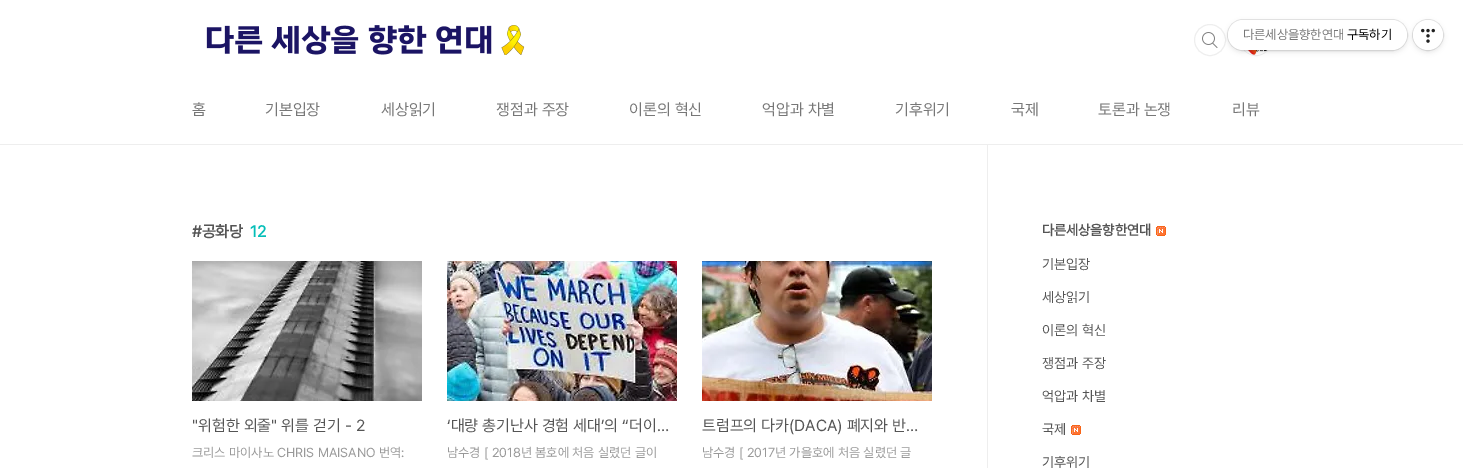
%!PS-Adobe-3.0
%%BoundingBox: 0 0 1463 468
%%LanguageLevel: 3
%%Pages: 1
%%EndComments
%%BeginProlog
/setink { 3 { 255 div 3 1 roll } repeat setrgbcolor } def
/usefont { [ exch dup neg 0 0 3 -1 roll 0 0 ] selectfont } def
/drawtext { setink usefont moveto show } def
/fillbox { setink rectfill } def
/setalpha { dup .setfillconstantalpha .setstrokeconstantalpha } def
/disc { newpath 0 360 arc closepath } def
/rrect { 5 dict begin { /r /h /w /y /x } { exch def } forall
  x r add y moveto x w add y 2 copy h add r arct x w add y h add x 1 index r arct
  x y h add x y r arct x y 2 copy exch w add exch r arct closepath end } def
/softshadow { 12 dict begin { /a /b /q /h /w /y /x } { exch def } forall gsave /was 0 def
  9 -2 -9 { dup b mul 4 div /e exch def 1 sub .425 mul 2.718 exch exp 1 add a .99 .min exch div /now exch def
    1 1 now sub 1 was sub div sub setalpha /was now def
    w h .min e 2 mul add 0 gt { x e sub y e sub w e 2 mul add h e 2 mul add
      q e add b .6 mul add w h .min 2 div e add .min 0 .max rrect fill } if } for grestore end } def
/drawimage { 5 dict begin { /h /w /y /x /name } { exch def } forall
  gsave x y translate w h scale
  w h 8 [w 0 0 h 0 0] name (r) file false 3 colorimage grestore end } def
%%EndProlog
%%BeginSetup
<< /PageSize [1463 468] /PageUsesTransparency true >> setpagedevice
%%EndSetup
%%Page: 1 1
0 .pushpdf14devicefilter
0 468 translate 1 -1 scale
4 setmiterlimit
0 0 1463 468 255 255 255 fillbox
0 0 0 setink
1413 22 30 30 15 2.5 0.1 softshadow
0.1 setalpha
1428 35 15.5 disc stroke
1 setalpha
255 255 255 setink
1428 35 15 disc fill
238 238 238 setink
1210 40 14.5 disc stroke
255 255 255 setink
1210 40 16 disc fill
(assets/img3.rgb) 1202 32 16 16 drawimage
238 238 238 setink
1210 40 15.5 disc stroke
1256 40 15.5 disc stroke
(assets/img4.rgb) 1245 50 22 5 drawimage
0 0 0 setink
1228 22 179 30 15 2.5 0.1 softshadow
0.1 setalpha
1227.5 19.5 180 31 15.5 rrect stroke
1 setalpha
255 255 255 setink
1228 20 179 30 15 rrect fill
(다른세상을향한연대) 1243 39 /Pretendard-Regular 13 119 119 119 drawtext
(구독하기) 1347 39 /Pretendard-Regular 13 0 0 0 drawtext
(assets/img1.rgb) 1421 28 14 15 drawimage
0 144 1463 1 238 238 238 fillbox
(assets/img2.rgb) 206 25 319 30 drawimage
(홈) 192 115 /Pretendard-Regular 16 119 119 119 drawtext
(기본입장) 265 115 /Pretendard-Regular 16 119 119 119 drawtext
(세상읽기) 381 115 /Pretendard-Regular 16 119 119 119 drawtext
(쟁점과 주장) 496 115 /Pretendard-Regular 16 119 119 119 drawtext
(이론의 혁신) 629 115 /Pretendard-Regular 16 119 119 119 drawtext
(억압과 차별) 762 115 /Pretendard-Regular 16 119 119 119 drawtext
(기후위기) 895 115 /Pretendard-Regular 16 119 119 119 drawtext
(국제) 1011 115 /Pretendard-Regular 16 119 119 119 drawtext
(토론과 논쟁) 1098 115 /Pretendard-Regular 16 119 119 119 drawtext
(리뷰) 1232 115 /Pretendard-Regular 16 119 119 119 drawtext
(#공화당) 192 237 /Pretendard-Bold 16 85 85 85 drawtext
(12) 250 237 /Pretendard-Bold 16 4 190 184 drawtext
(assets/img5.rgb) 192 261 230 140 drawimage
("위험한 외줄" 위를 걷기 - 2) 192 431 /Pretendard-Regular 16 85 85 85 drawtext
(크리스 마이사노 CHRIS MAISANO 번역:) 192 457 /Pretendard-Regular 13 153 153 153 drawtext
(assets/img6.rgb) 447 261 230 140 drawimage
(‘대량 총기난사 경험 세대’의 “더이…) 447 431 /Pretendard-Regular 16 85 85 85 drawtext
(남수경 [ 2018년 봄호에 처음 실렸던 글이) 447 457 /Pretendard-Regular 13 153 153 153 drawtext
(assets/img7.rgb) 702 261 230 140 drawimage
(트럼프의 다카\(DACA\) 폐지와 반…) 702 431 /Pretendard-Regular 16 85 85 85 drawtext
(남수경 [ 2017년 가을호에 처음 실렸던 글) 702 457 /Pretendard-Regular 13 153 153 153 drawtext
987 145 1 323 238 238 238 fillbox
(다른세상을향한연대) 1042 235 /Pretendard-Bold 14 85 85 85 drawtext
(assets/img8.rgb) 1156 226 10 10 drawimage
(기본입장) 1042 269 /Pretendard-Regular 14 85 85 85 drawtext
(세상읽기) 1042 302 /Pretendard-Regular 14 85 85 85 drawtext
(이론의 혁신) 1042 335 /Pretendard-Regular 14 85 85 85 drawtext
(쟁점과 주장) 1042 368 /Pretendard-Regular 14 85 85 85 drawtext
(억압과 차별) 1042 401 /Pretendard-Regular 14 85 85 85 drawtext
(국제) 1042 434 /Pretendard-Regular 14 85 85 85 drawtext
(assets/img8.rgb) 1071 425 10 10 drawimage
(기후위기) 1042 467 /Pretendard-Regular 14 85 85 85 drawtext
.poppdf14devicefilter showpage
%%EOF
